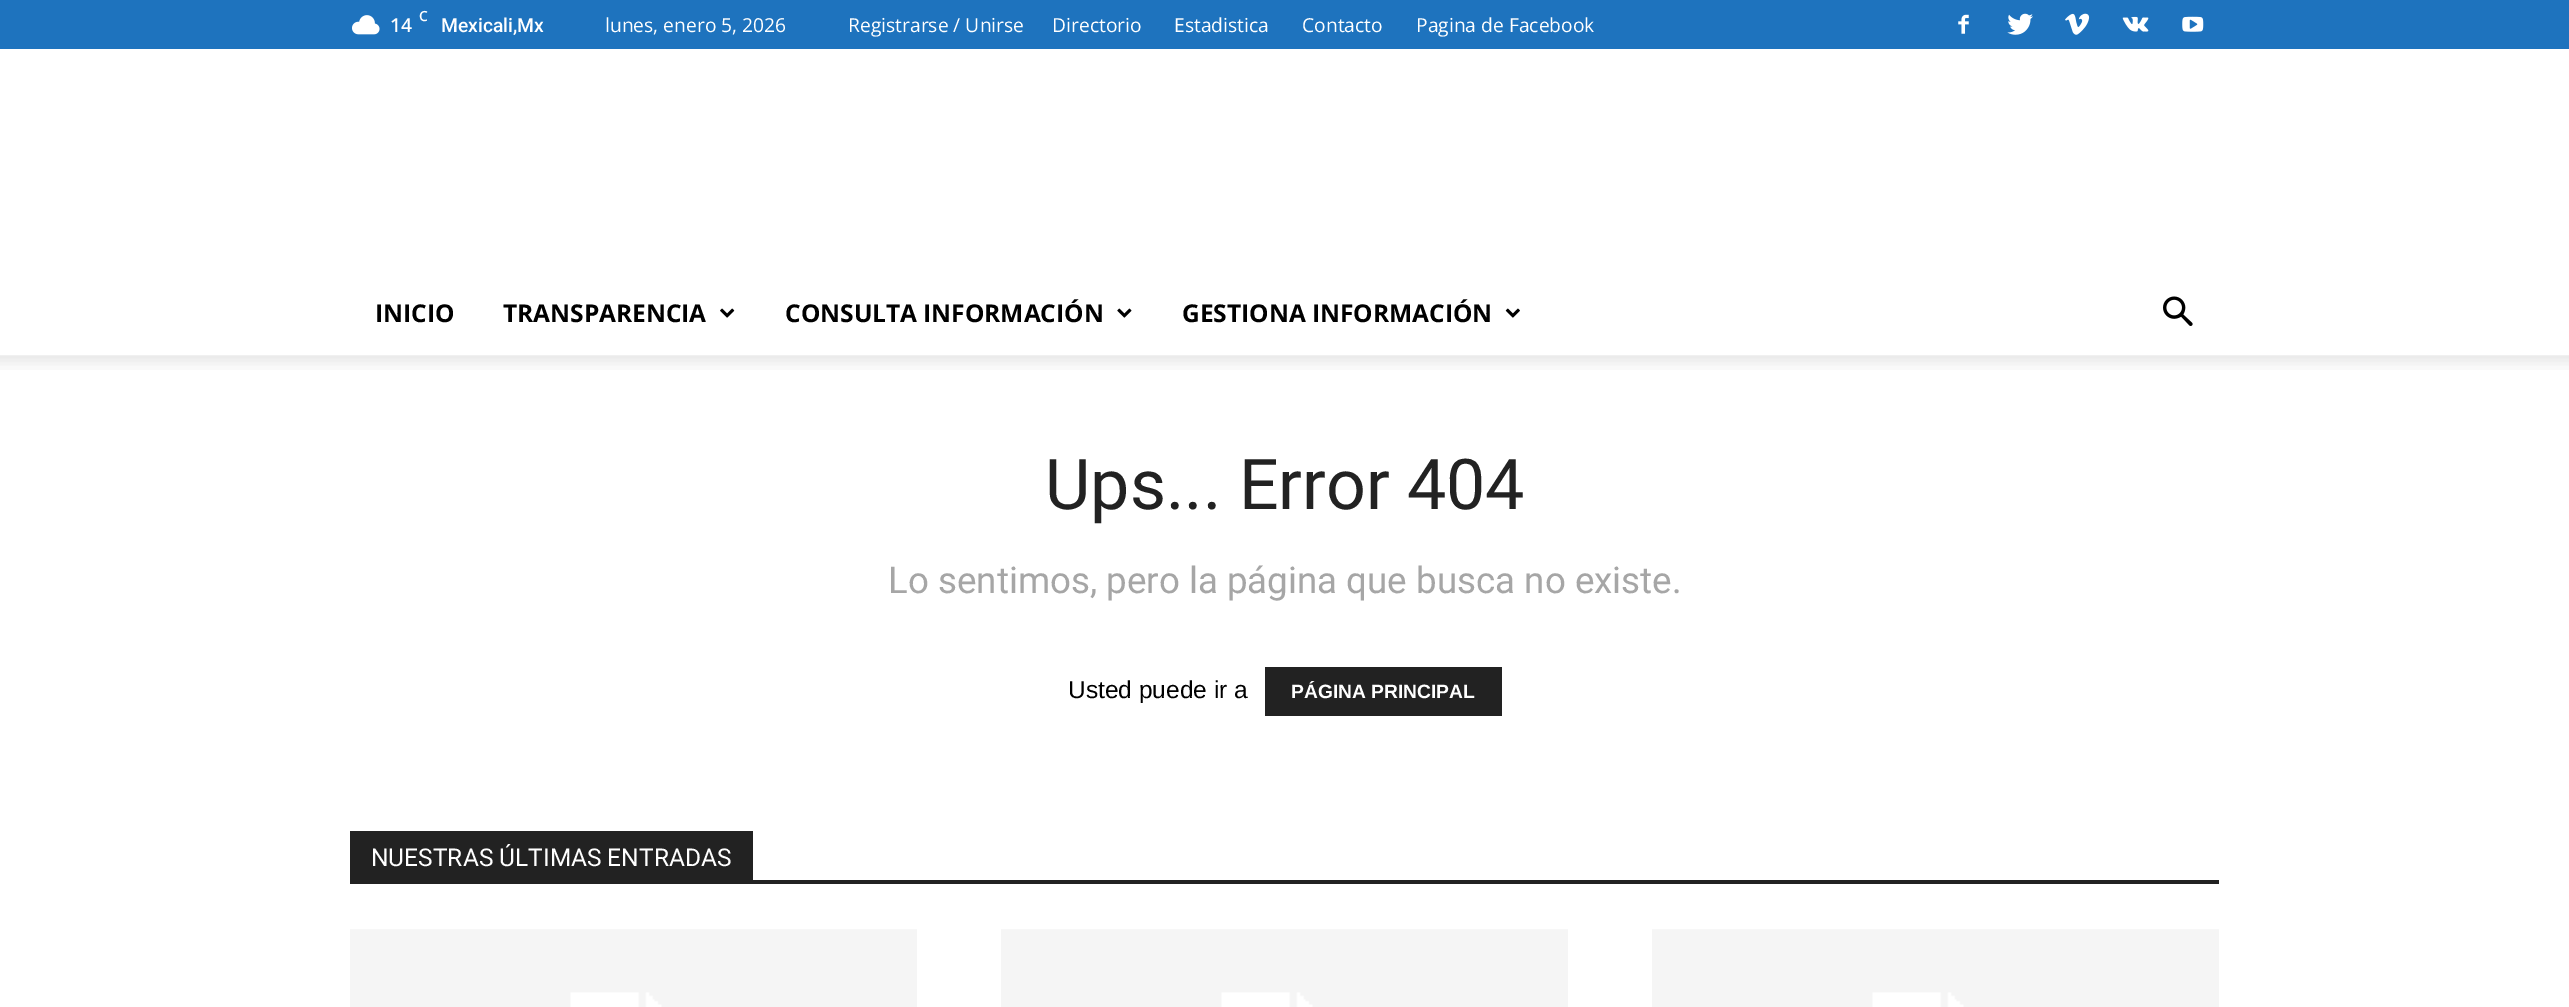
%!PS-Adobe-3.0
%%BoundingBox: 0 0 2569 1007
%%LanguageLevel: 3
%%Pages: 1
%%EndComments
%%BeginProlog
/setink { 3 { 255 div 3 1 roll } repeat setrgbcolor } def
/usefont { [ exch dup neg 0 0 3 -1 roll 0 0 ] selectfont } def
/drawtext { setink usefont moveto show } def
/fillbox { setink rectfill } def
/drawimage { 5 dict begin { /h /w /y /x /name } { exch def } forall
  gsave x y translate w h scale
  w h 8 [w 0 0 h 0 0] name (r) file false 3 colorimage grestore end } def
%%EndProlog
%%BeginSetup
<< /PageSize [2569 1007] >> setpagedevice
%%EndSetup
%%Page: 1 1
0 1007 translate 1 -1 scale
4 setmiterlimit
0 0 2569 1007 255 255 255 fillbox
0 0 2569 49 30 115 190 fillbox
(assets/img1.rgb) 352 15 28 20 drawimage
(C) 419 21 /OpenSans-SemiBold 14 255 255 255 drawtext
(14) 390 32 /OpenSans-SemiBold 19.25 255 255 255 drawtext
(Mexicali,Mx) 441 32 /Roboto-Medium 19.25 255 255 255 drawtext
(lunes, enero 5, 2026) 605 32 /OpenSans-Regular 19.25 255 255 255 drawtext
(Registrarse / Unirse) 848 32 /OpenSans-Regular 19.25 255 255 255 drawtext
(Directorio) 1052 32 /OpenSans-Regular 19.25 255 255 255 drawtext
(Estadistica) 1174 32 /OpenSans-Regular 19.25 255 255 255 drawtext
(Contacto) 1302 32 /OpenSans-Regular 19.25 255 255 255 drawtext
(Pagina de Facebook) 1416 32 /OpenSans-Regular 19.25 255 255 255 drawtext
(assets/img2.rgb) 1958 14 11 20 drawimage
(assets/img3.rgb) 2007 13 26 22 drawimage
(assets/img4.rgb) 2065 13 25 22 drawimage
(assets/img5.rgb) 2122 16 27 16 drawimage
(assets/img6.rgb) 2182 16 22 16 drawimage
(INICIO) 375 322 /OpenSans-Bold 24.5 0 0 0 drawtext
(TRANSPARENCIA) 503 322 /OpenSans-Bold 24.5 0 0 0 drawtext
(assets/img7.rgb) 720 308 15 10 drawimage
(CONSULTA INFORMACIÓN) 785 322 /OpenSans-Bold 24.5 0 0 0 drawtext
(assets/img8.rgb) 1117 308 15 10 drawimage
(GESTIONA INFORMACIÓN) 1182 322 /OpenSans-Bold 24.5 0 0 0 drawtext
(assets/img9.rgb) 1505 308 15 10 drawimage
(assets/img10.rgb) 2163 296 30 30 drawimage
(assets/img11.rgb) 0 355 2569 15 drawimage
(Ups... Error 404) 1045 509 /Roboto-Regular 70 34 34 34 drawtext
(Lo sentimos, pero la página que busca no existe.) 888 593 /Roboto-Regular 36.75 166 166 166 drawtext
(Usted puede ir a) 1068 698 /LiberationSans-Regular 24.5 0 0 0 drawtext
1265 667 237 49 34 34 34 fillbox
(PÁGINA PRINCIPAL) 1291 698 /LiberationSans-Bold 19.25 255 255 255 drawtext
350 880 1869 4 34 34 34 fillbox
350 831 403 49 34 34 34 fillbox
(NUESTRAS ÚLTIMAS ENTRADAS) 371 866 /Roboto-Regular 24.5 255 255 255 drawtext
(assets/img12.rgb) 350 929 567 78 drawimage
(assets/img12.rgb) 1001 929 567 78 drawimage
(assets/img12.rgb) 1652 929 567 78 drawimage
showpage
%%EOF
